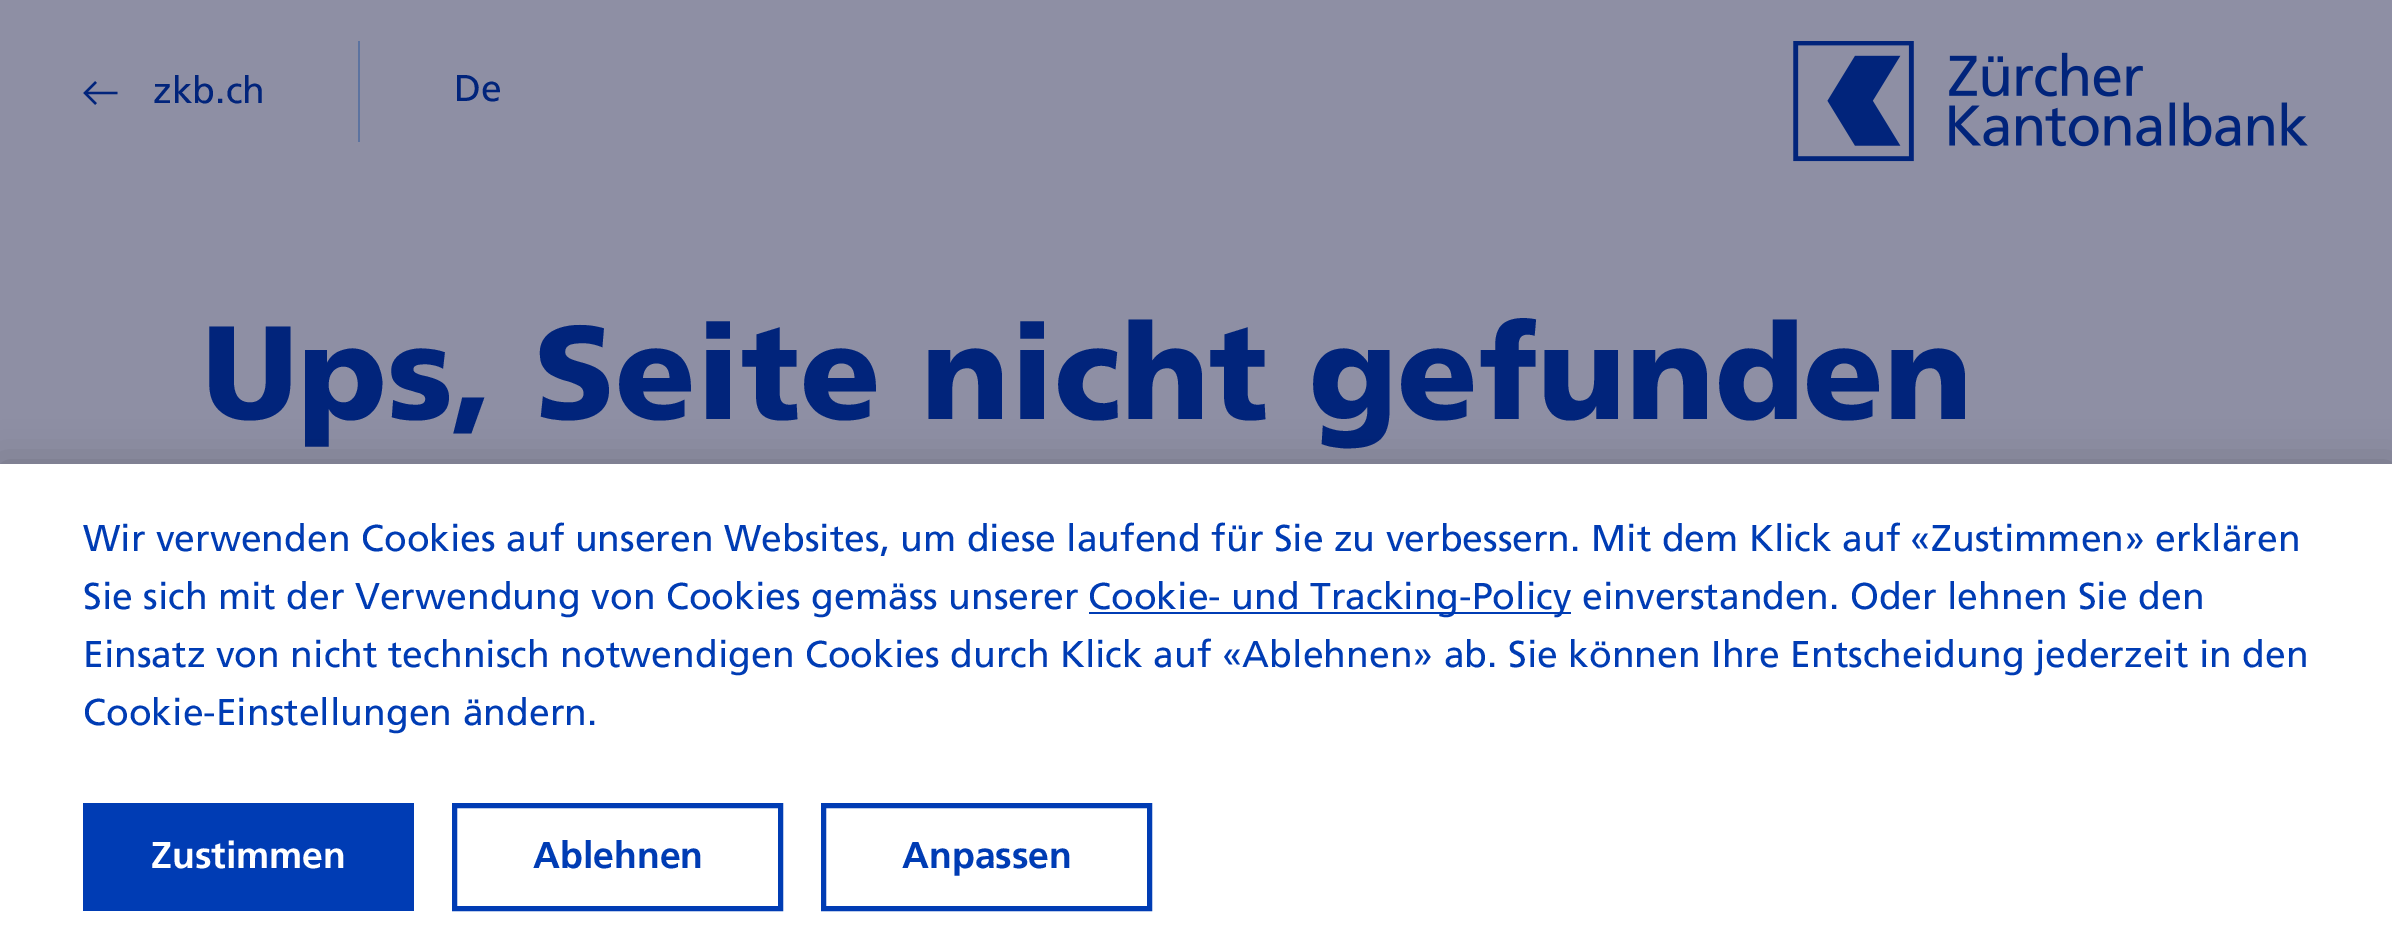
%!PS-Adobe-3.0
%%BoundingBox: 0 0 2392 930
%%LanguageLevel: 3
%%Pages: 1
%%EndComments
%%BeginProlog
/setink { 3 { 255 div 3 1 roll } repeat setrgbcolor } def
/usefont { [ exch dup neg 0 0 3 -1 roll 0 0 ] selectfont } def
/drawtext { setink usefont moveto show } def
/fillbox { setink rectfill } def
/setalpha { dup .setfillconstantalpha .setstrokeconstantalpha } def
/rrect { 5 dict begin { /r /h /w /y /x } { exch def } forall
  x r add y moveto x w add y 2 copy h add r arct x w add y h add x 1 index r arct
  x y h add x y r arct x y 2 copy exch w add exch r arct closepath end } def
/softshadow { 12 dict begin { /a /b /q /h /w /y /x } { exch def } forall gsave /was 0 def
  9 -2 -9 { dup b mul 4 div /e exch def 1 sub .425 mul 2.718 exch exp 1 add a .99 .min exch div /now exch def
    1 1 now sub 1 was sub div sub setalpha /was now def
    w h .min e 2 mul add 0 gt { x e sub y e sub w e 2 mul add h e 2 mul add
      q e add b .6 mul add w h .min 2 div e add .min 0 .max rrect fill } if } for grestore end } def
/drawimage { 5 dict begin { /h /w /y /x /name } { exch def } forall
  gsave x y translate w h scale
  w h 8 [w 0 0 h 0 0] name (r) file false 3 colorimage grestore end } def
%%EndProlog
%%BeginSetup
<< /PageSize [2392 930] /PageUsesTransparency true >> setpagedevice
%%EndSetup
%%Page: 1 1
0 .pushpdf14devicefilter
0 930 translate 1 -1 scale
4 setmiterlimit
0 0 2392 930 142 143 164 fillbox
1 36 123 setink
2.3 setlinewidth
85 93 moveto 117.5 93 lineto 96 104 moveto 85 93 lineto 96 82 lineto stroke
(zkb.ch) 153 103 /Frutiger-Regular 37.33 1 36 123 drawtext
358 41 2 101 92 115 160 fillbox
(De) 454 101 /Frutiger-Regular 37.33 1 36 123 drawtext
(assets/img1.rgb) 1793 41 515 121 drawimage
(Ups, Seite nicht gefunden) 202 419 /Frutiger-Black 132.75 1 36 123 drawtext
0 0 0 setink
0 464 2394 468 0 20 0.2 softshadow
0 464 2392 466 255 255 255 fillbox
(Wir verwenden Cookies auf unseren Websites, um diese laufend für Sie zu verbessern. Mit dem Klick auf «Zustimmen» erklären) 83 551 /Frutiger-Regular 37.33 0 60 180 drawtext
(Sie sich mit der Verwendung von Cookies gemäss unserer) 83 609 /Frutiger-Regular 37.33 0 60 180 drawtext
1089 612 482 2 0 60 180 fillbox
(Cookie- und Tracking-Policy) 1088 609 /Frutiger-Regular 37.33 0 60 180 drawtext
(einverstanden. Oder lehnen Sie den) 1582 609 /Frutiger-Regular 37.33 0 60 180 drawtext
(Einsatz von nicht technisch notwendigen Cookies durch Klick auf «Ablehnen» ab. Sie können Ihre Entscheidung jederzeit in den) 83 667 /Frutiger-Regular 37.33 0 60 180 drawtext
(Cookie-Einstellungen ändern.) 83 725 /Frutiger-Regular 37.33 0 60 180 drawtext
83 803 331 108 0 60 180 fillbox
(Zustimmen) 151 868 /Frutiger-Bold 37.33 255 255 255 drawtext
0 60 180 setink
5 setlinewidth
454.5 805.5 326 103 rectstroke
(Ablehnen) 533 868 /Frutiger-Bold 37.33 0 60 180 drawtext
823.5 805.5 326 103 rectstroke
(Anpassen) 902 868 /Frutiger-Bold 37.33 0 60 180 drawtext
.poppdf14devicefilter showpage
%%EOF
